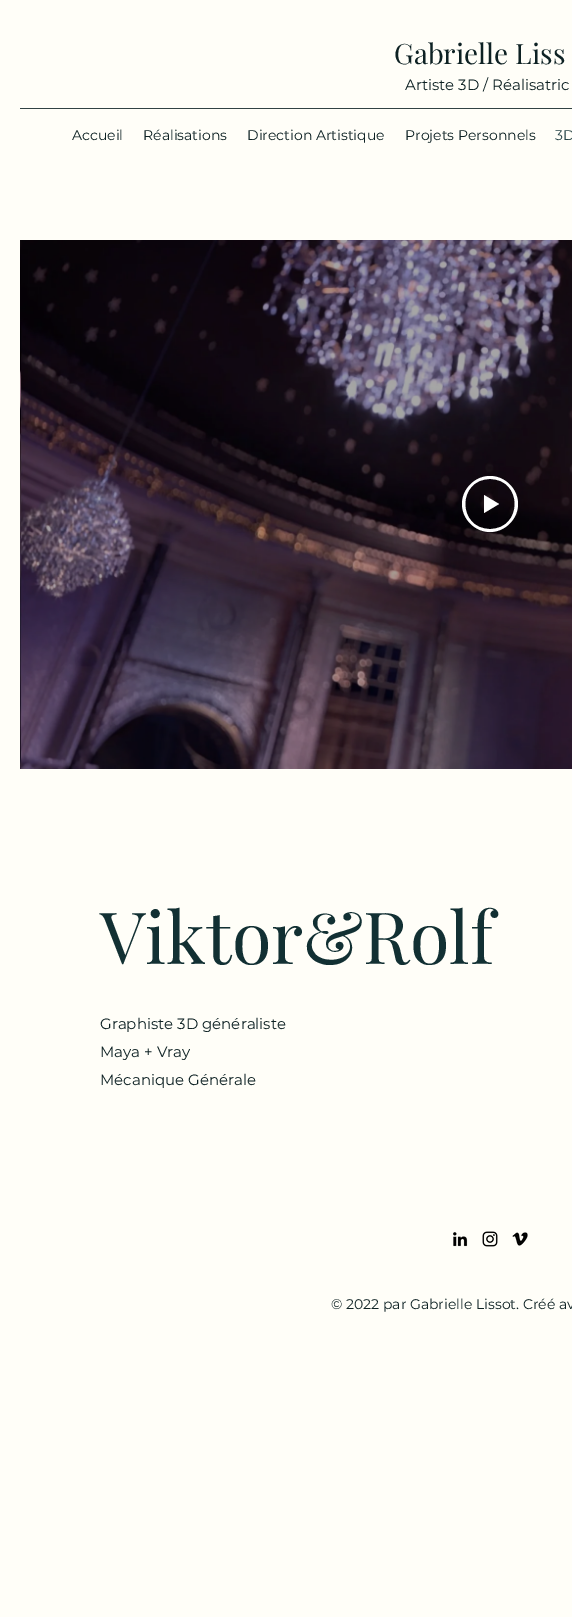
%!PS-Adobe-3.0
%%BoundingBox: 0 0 572 1617
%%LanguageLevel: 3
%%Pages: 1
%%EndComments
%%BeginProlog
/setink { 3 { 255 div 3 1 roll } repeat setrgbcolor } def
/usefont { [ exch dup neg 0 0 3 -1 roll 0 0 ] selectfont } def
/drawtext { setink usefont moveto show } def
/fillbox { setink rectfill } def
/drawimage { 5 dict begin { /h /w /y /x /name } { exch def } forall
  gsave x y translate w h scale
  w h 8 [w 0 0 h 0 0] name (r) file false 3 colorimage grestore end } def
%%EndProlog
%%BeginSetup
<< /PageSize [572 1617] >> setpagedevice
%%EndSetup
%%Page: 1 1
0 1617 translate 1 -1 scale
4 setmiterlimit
0 0 572 1617 255 254 248 fillbox
(Gabrielle Liss) 394 64 /PlayfairDisplay-Regular 28 13 33 35 drawtext
(Artiste 3D / Réalisatric) 405 90 /Montserrat-Regular 15 13 33 35 drawtext
20 108 552 1 49 66 67 fillbox
(Accueil) 72 140 /Montserrat-Regular 14 13 33 35 drawtext
(Réalisations) 143 140 /Montserrat-Regular 14 13 33 35 drawtext
(Direction Artistique) 247 140 /Montserrat-Regular 14 13 33 35 drawtext
(Projets Personnels) 405 140 /Montserrat-Regular 14 13 33 35 drawtext
(3D) 555 140 /Montserrat-Regular 14 38 67 70 drawtext
(assets/img1.rgb) 560 240 12 529 drawimage
(assets/img2.rgb) 20 240 540 529 drawimage
255 255 255 setink
490 529 moveto 523 529 523 479 490 479 curveto 457 479 457 529 490 529 curveto closepath 490 532 moveto 475 532 462 519 462 504 curveto 462 489 475 476 490 476 curveto 505 476 518 489 518 504 curveto 518 519 505 532 490 532 curveto closepath eofill
499 504 moveto 484 513 lineto 484 495 lineto closepath eofill
(Viktor&Rolf) 100 964 /PlayfairDisplay-Regular 72 18 48 51 drawtext
(Graphiste 3D généraliste) 100 1029 /Montserrat-Regular 15 13 33 35 drawtext
(Maya + Vray) 100 1057 /Montserrat-Regular 15 13 33 35 drawtext
(Mécanique Générale) 100 1085 /Montserrat-Regular 15 13 33 35 drawtext
(assets/img3.rgb) 453 1232 15 15 drawimage
(assets/img4.rgb) 482 1231 16 16 drawimage
(assets/img5.rgb) 512 1232 16 14 drawimage
(© 2022 par Gabrielle Lissot. Créé av) 331 1309 /Montserrat-Regular 14 13 33 35 drawtext
showpage
%%EOF
